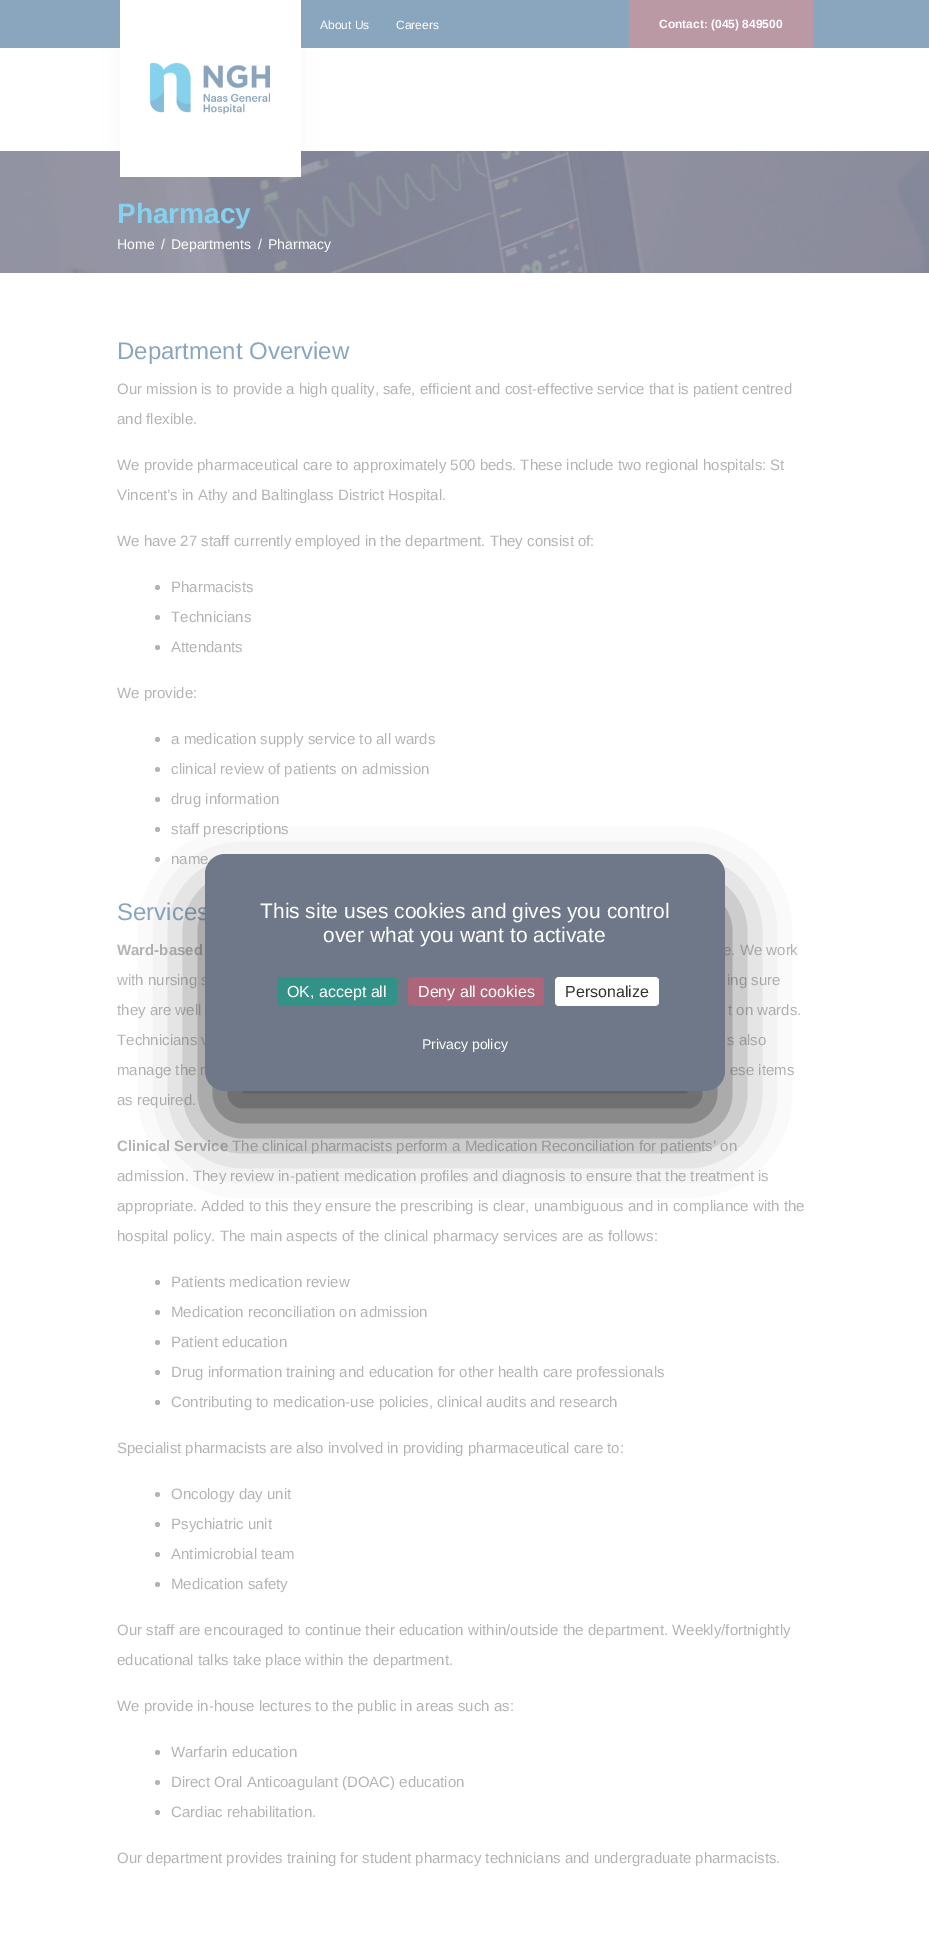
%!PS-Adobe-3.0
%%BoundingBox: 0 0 929 1944
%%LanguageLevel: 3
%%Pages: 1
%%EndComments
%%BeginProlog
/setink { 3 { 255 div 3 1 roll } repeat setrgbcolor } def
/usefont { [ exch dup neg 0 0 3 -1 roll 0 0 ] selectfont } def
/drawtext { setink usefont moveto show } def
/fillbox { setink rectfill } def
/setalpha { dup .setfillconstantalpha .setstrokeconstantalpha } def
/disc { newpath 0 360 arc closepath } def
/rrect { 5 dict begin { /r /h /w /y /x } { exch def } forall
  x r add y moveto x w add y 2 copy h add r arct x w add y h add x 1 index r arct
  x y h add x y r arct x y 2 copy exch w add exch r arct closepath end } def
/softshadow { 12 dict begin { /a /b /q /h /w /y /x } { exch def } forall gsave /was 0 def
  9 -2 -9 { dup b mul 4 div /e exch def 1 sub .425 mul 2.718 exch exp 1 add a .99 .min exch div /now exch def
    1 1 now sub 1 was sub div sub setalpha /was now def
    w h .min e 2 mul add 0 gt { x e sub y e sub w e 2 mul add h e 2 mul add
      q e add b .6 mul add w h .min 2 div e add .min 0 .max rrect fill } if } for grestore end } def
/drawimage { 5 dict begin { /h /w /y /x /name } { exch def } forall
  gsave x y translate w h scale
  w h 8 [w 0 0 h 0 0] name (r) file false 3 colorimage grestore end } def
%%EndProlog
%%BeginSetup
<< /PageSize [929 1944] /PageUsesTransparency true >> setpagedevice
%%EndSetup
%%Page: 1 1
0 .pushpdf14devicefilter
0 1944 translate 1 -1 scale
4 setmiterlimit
0 0 929 1944 255 255 255 fillbox
0 0 929 48 138 166 190 fillbox
(assets/img2.rgb) 0 151 929 122 drawimage
128 128 128 setink
120 31 181 177 0 14.5 0.09 softshadow
120 0 181 177 255 255 255 fillbox
(assets/img1.rgb) 150 63 120 51 drawimage
(About Us) 320 29 /LiberationSans-Regular 12 255 255 255 drawtext
(Careers) 396 29 /LiberationSans-Regular 12 255 255 255 drawtext
629 0 184 48 187 153 164 fillbox
(Contact: \(045\) 849500) 659 28 /LiberationSans-Bold 12 255 255 255 drawtext
(Pharmacy) 117 223 /LiberationSans-Bold 28 134 209 237 drawtext
(Home) 117 249 /LiberationSans-Regular 14 255 255 255 drawtext
(/) 161 249 /LiberationSans-Regular 14 255 255 255 drawtext
(Departments) 171 249 /LiberationSans-Regular 14 255 255 255 drawtext
(/) 258 249 /LiberationSans-Regular 14 255 255 255 drawtext
(Pharmacy) 268 249 /LiberationSans-Regular 14 255 255 255 drawtext
(Department Overview) 117 359 /LiberationSans-Regular 24 138 166 190 drawtext
(Our mission is to provide a high quality, safe, efficient and cost-effective service that is patient centred) 117 394 /LiberationSans-Regular 15 180 180 180 drawtext
(and flexible.) 117 424 /LiberationSans-Regular 15 180 180 180 drawtext
(We provide pharmaceutical care to approximately 500 beds. These include two regional hospitals: St) 117 470 /LiberationSans-Regular 15 180 180 180 drawtext
(Vincent’s in Athy and Baltinglass District Hospital.) 117 500 /LiberationSans-Regular 15 180 180 180 drawtext
(We have 27 staff currently employed in the department. They consist of:) 117 546 /LiberationSans-Regular 15 180 180 180 drawtext
157.5 587.5 2.5 disc fill
(Pharmacists) 171 592 /LiberationSans-Regular 15 180 180 180 drawtext
157.5 617.5 2.5 disc fill
(Technicians) 171 622 /LiberationSans-Regular 15 180 180 180 drawtext
157.5 647.5 2.5 disc fill
(Attendants) 171 652 /LiberationSans-Regular 15 180 180 180 drawtext
(We provide:) 117 698 /LiberationSans-Regular 15 180 180 180 drawtext
157.5 739.5 2.5 disc fill
(a medication supply service to all wards) 171 744 /LiberationSans-Regular 15 180 180 180 drawtext
157.5 769.5 2.5 disc fill
(clinical review of patients on admission) 171 774 /LiberationSans-Regular 15 180 180 180 drawtext
157.5 799.5 2.5 disc fill
(drug information) 171 804 /LiberationSans-Regular 15 180 180 180 drawtext
157.5 829.5 2.5 disc fill
(staff prescriptions) 171 834 /LiberationSans-Regular 15 180 180 180 drawtext
157.5 859.5 2.5 disc fill
(name) 171 864 /LiberationSans-Regular 15 180 180 180 drawtext
(Services) 117 920 /LiberationSans-Regular 24 138 166 190 drawtext
(Ward-based) 117 955 /LiberationSans-Bold 15 180 180 180 drawtext
(e. We work) 723 955 /LiberationSans-Regular 15 180 180 180 drawtext
(with nursing s) 117 985 /LiberationSans-Regular 15 180 180 180 drawtext
(ing sure) 727 985 /LiberationSans-Regular 15 180 180 180 drawtext
(they are well) 117 1015 /LiberationSans-Regular 15 180 180 180 drawtext
(t on wards.) 728 1015 /LiberationSans-Regular 15 180 180 180 drawtext
(Technicians v) 117 1045 /LiberationSans-Regular 15 180 180 180 drawtext
(s also) 727 1045 /LiberationSans-Regular 15 180 180 180 drawtext
(manage the n) 117 1075 /LiberationSans-Regular 15 180 180 180 drawtext
(ese items) 730 1075 /LiberationSans-Regular 15 180 180 180 drawtext
(as required.) 117 1105 /LiberationSans-Regular 15 180 180 180 drawtext
(Clinical Service) 117 1151 /LiberationSans-Bold 15 180 180 180 drawtext
(The clinical pharmacists perform a Medication Reconciliation for patients’ on) 232 1151 /LiberationSans-Regular 15 180 180 180 drawtext
(admission. They review in-patient medication profiles and diagnosis to ensure that the treatment is) 117 1181 /LiberationSans-Regular 15 180 180 180 drawtext
(appropriate. Added to this they ensure the prescribing is clear, unambiguous and in compliance with the) 117 1211 /LiberationSans-Regular 15 180 180 180 drawtext
(hospital policy. The main aspects of the clinical pharmacy services are as follows:) 117 1241 /LiberationSans-Regular 15 180 180 180 drawtext
157.5 1282.5 2.5 disc fill
(Patients medication review) 171 1287 /LiberationSans-Regular 15 180 180 180 drawtext
157.5 1312.5 2.5 disc fill
(Medication reconciliation on admission) 171 1317 /LiberationSans-Regular 15 180 180 180 drawtext
157.5 1342.5 2.5 disc fill
(Patient education) 171 1347 /LiberationSans-Regular 15 180 180 180 drawtext
157.5 1372.5 2.5 disc fill
(Drug information training and education for other health care professionals) 171 1377 /LiberationSans-Regular 15 180 180 180 drawtext
157.5 1402.5 2.5 disc fill
(Contributing to medication-use policies, clinical audits and research) 171 1407 /LiberationSans-Regular 15 180 180 180 drawtext
(Specialist pharmacists are also involved in providing pharmaceutical care to:) 117 1453 /LiberationSans-Regular 15 180 180 180 drawtext
157.5 1494.5 2.5 disc fill
(Oncology day unit) 171 1499 /LiberationSans-Regular 15 180 180 180 drawtext
157.5 1524.5 2.5 disc fill
(Psychiatric unit) 171 1529 /LiberationSans-Regular 15 180 180 180 drawtext
157.5 1554.5 2.5 disc fill
(Antimicrobial team) 171 1559 /LiberationSans-Regular 15 180 180 180 drawtext
157.5 1584.5 2.5 disc fill
(Medication safety) 171 1589 /LiberationSans-Regular 15 180 180 180 drawtext
(Our staff are encouraged to continue their education within/outside the department. Weekly/fortnightly) 117 1635 /LiberationSans-Regular 15 180 180 180 drawtext
(educational talks take place within the department.) 117 1665 /LiberationSans-Regular 15 180 180 180 drawtext
(We provide in-house lectures to the public in areas such as:) 117 1711 /LiberationSans-Regular 15 180 180 180 drawtext
157.5 1752.5 2.5 disc fill
(Warfarin education) 171 1757 /LiberationSans-Regular 15 180 180 180 drawtext
157.5 1782.5 2.5 disc fill
(Direct Oral Anticoagulant \(DOAC\) education) 171 1787 /LiberationSans-Regular 15 180 180 180 drawtext
157.5 1812.5 2.5 disc fill
(Cardiac rehabilitation.) 171 1817 /LiberationSans-Regular 15 180 180 180 drawtext
(Our department provides training for student pharmacy technicians and undergraduate pharmacists.) 117 1863 /LiberationSans-Regular 15 180 180 180 drawtext
84 84 84 setink
205 894 520 237 20 30 1 softshadow
110 120 136 setink
205 854 520 237 20 rrect fill
(This site uses cookies and gives you control) 260 918 /LiberationSans-Regular 21 255 255 255 drawtext
(over what you want to activate) 323 942 /LiberationSans-Regular 21 255 255 255 drawtext
51 146 136 setink
277 977 120 29 4 rrect fill
(OK, accept all) 287 997 /LiberationSans-Regular 16 255 255 255 drawtext
174 100 122 setink
408 977 136 29 4 rrect fill
(Deny all cookies) 418 997 /LiberationSans-Regular 16 255 255 255 drawtext
555 977 104 29 4 rrect fill
(Personalize) 565 997 /LiberationSans-Regular 16 51 51 51 drawtext
(Privacy policy) 422 1049 /LiberationSans-Regular 14 255 255 255 drawtext
.poppdf14devicefilter showpage
%%EOF
